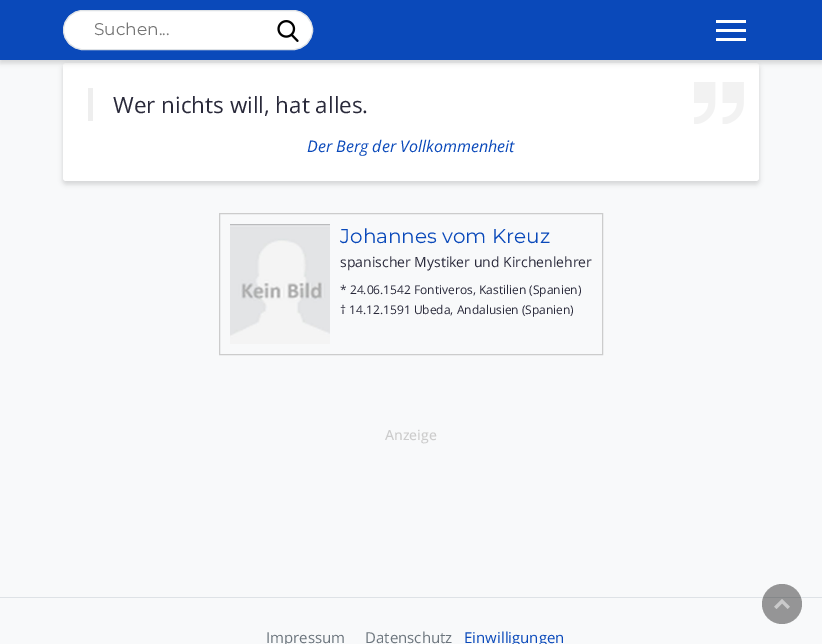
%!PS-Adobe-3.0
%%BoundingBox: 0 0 822 644
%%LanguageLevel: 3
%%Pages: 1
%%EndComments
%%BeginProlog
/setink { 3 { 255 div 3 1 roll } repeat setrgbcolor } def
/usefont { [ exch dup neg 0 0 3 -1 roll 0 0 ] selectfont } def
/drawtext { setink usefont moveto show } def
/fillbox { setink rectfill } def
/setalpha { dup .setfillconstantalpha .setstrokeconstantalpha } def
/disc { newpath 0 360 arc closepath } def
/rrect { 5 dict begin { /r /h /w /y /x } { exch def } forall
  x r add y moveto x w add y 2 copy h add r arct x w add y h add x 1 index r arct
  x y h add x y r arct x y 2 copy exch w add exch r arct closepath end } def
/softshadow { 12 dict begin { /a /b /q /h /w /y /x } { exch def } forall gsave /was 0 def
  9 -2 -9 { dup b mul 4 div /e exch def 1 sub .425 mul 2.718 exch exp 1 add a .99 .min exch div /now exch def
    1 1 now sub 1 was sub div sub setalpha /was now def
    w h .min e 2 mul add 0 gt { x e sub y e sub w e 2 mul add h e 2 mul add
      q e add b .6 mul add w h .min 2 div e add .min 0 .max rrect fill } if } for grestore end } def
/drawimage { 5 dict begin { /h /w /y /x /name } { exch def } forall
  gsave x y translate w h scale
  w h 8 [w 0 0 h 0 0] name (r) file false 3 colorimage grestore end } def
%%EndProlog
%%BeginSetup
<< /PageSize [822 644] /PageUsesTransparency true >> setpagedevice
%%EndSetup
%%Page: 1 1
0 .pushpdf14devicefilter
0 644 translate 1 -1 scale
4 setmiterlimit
0 0 822 644 248 249 250 fillbox
0 0 0 setink
63 66 696 118 3 2.5 0.15 softshadow
255 255 255 setink
63 63 696 118 3 rrect fill
0 0 0 setink
0 3 822 60 0 2.5 0.15 softshadow
0 0 822 60 10 73 186 fillbox
255 255 255 setink
63.5 10.5 249 39 19.5 rrect gsave fill grestore
222 226 230 setink
stroke
(Suchen...) 94 35 /Montserrat-Regular 17 117 117 117 drawtext
(assets/img1.rgb) 277 20 22 22 drawimage
716 20 30 3 255 255 255 fillbox
716 29 30 3 255 255 255 fillbox
716 38 30 3 255 255 255 fillbox
88 88 5 33 238 238 238 fillbox
(Wer nichts will, hat alles.) 113 113 /OpenSans-Regular 22.4 41 41 58 drawtext
(Der Berg der Vollkommenheit) 307 152 /OpenSans-Italic 16 10 73 186 drawtext
(assets/img2.rgb) 694 82 50 42 drawimage
204 204 204 setink
219.5 213.5 383 141 rectstroke
(assets/img3.rgb) 230 224 100 120 drawimage
(Johannes vom Kreuz) 340 243 /Montserrat-Regular 20 10 73 186 drawtext
(spanischer Mystiker und Kirchenlehrer) 340 267 /OpenSans-Regular 14 41 41 58 drawtext
(* 24.06.1542 Fontiveros, Kastilien \(Spanien\)) 340 294 /OpenSans-Regular 12 41 41 58 drawtext
(† 14.12.1591 Ubeda, Andalusien \(Spanien\)) 340 314 /OpenSans-Regular 12 41 41 58 drawtext
(Anzeige) 385 440 /OpenSans-Medium 14 204 204 204 drawtext
0 597 822 1 222 226 230 fillbox
0.4 setalpha
0 0 0 setink
782 604 20 disc fill
1 setalpha
(assets/img4.rgb) 774 599 16 10 drawimage
(Impressum) 266 643 /OpenSans-Regular 15 108 117 125 drawtext
(Datenschutz) 365 643 /OpenSans-Regular 15 108 117 125 drawtext
(Einwilligungen) 464 643 /OpenSans-Regular 15 10 73 186 drawtext
.poppdf14devicefilter showpage
%%EOF
